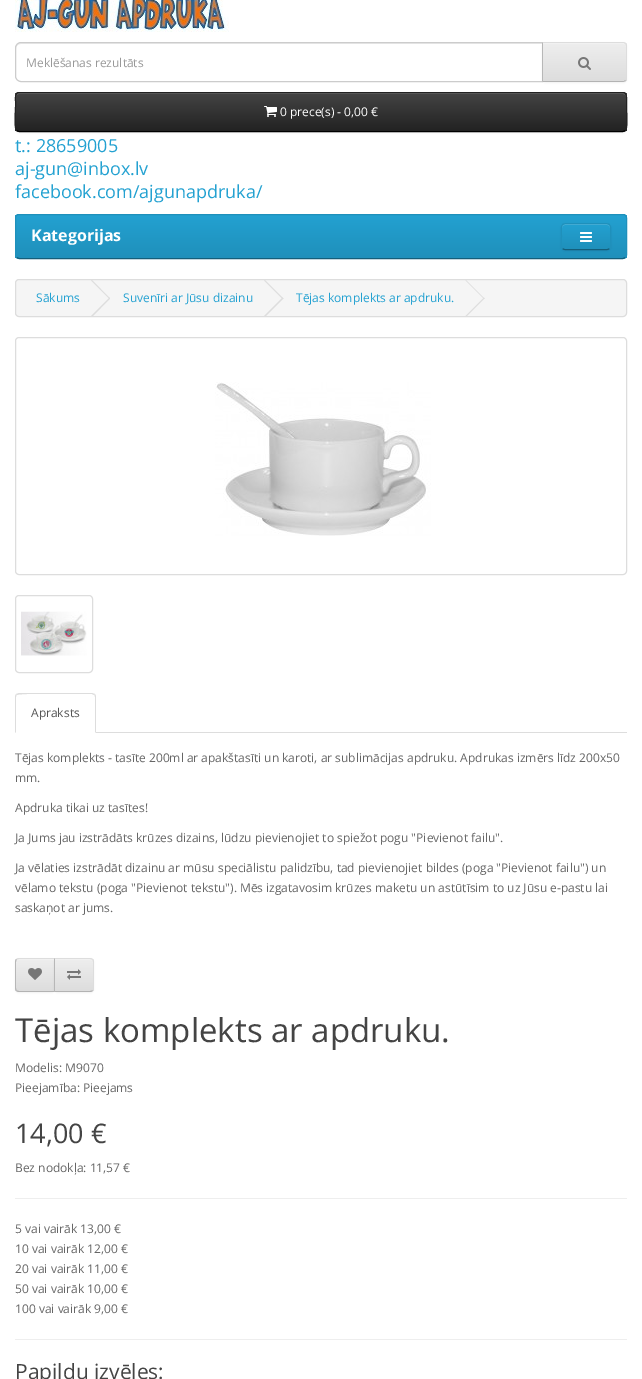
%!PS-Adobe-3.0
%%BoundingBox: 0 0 642 1379
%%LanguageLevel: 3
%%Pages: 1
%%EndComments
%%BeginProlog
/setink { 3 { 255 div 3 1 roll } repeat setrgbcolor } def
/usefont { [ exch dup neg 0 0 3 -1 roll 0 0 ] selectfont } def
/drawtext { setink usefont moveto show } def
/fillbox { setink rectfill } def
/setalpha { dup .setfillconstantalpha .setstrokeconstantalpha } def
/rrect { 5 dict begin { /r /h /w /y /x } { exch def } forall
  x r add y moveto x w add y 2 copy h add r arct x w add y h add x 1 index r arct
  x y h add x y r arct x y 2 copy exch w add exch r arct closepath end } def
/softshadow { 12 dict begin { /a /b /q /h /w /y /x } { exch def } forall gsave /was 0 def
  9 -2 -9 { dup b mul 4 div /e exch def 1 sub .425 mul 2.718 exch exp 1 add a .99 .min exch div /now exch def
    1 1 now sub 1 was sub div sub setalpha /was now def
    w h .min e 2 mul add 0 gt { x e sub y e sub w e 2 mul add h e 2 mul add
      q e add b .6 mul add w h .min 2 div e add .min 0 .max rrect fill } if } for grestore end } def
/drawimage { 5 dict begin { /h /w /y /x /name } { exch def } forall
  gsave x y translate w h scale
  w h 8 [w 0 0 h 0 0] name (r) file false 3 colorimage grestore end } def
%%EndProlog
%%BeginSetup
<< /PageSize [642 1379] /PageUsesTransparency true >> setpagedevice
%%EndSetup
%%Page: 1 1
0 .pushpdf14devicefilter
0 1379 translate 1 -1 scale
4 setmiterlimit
0 0 642 1379 255 255 255 fillbox
(assets/img1.rgb) 15 0 214 32 drawimage
236 236 236 setink
21 44 moveto 542 44 lineto 542 43 lineto 21 43 lineto 18 43 16 45 16 48 curveto 16 49 lineto 16 46 18 44 21 44 curveto closepath fill
204 204 204 setink
21 42.5 moveto 542.5 42.5 lineto 542.5 81.5 lineto 21 81.5 lineto 18 81.5 15.5 79 15.5 76 curveto 15.5 48 lineto 15.5 45 18 42.5 21 42.5 curveto closepath stroke
(Meklēšanas rezultāts) 26 67 /OpenSans-Regular 12 153 153 153 drawtext
0 0 0 setink
542 43 85 40 4 1 0.05 softshadow
231 231 231 setink
542 42 moveto 623 42 lineto 625 42 627 44 627 46 curveto 627 78 lineto 627 80 625 82 623 82 curveto 542 82 lineto closepath fill
gsave
542 42 moveto 623 42 lineto 625 42 627 44 627 46 curveto 627 78 lineto 627 80 625 82 623 82 curveto 542 82 lineto closepath clip newpath
gsave 543 43 moveto 627 43 lineto 627 81 lineto 543 81 lineto closepath clip newpath
<< /ShadingType 2 /ColorSpace /DeviceRGB /Coords [585 43 585 81] /Extend [true true] /Function << /FunctionType 2 /Domain [0 1] /C0 [0.933 0.933 0.933] /C1 [0.867 0.867 0.867] /N 1 >> >> shfill grestore
grestore
241 241 241 setink
543 44 moveto 623 44 lineto 625 44 626 45 626 47 curveto 626 46 lineto 626 44 625 43 623 43 curveto 543 43 lineto closepath fill
221 221 221 setink
542 42 moveto 543 43 lineto 624 43 lineto 625 44 lineto 626 43 lineto 623 42 lineto closepath fill
627 78 moveto 627 46 lineto 627 45 626.5 44 626 43 curveto 625 44 lineto 626 44 626 45 626 46 curveto 626 78 lineto 626 79 626 80 625 80 curveto 626 81 lineto 626.5 80 627 79 627 78 curveto closepath fill
179 179 179 setink
623 82 moveto 626 81 lineto 625 80 lineto 624 81 lineto 543 81 lineto 542 82 lineto closepath fill
183 183 183 setink
542 42 moveto 542 82 lineto 543 81 lineto 543 43 lineto closepath fill
(assets/img2.rgb) 578 57 13 13 drawimage
0 0 0 setink
15 93 612 40 4 1 0.05 softshadow
54 54 54 setink
15 92 612 40 4 rrect fill
gsave
15 92 612 40 4 rrect clip newpath
gsave 15 93 moveto 627 93 lineto 627 131 lineto 15 131 lineto closepath clip newpath
<< /ShadingType 2 /ColorSpace /DeviceRGB /Coords [321 93 321 131] /Extend [true true] /Function << /FunctionType 2 /Domain [0 1] /C0 [0.267 0.267 0.267] /C1 [0.133 0.133 0.133] /N 1 >> >> shfill grestore
grestore
105 105 105 setink
19 94 moveto 623 94 lineto 625 94 626 95 626 97 curveto 626 96 lineto 626 94 625 93 623 93 curveto 19 93 lineto 17 93 16 94 16 96 curveto 16 97 lineto 16 95 17 94 19 94 curveto closepath fill
0 0 0 setink
625.5 130.5 moveto 623 131.5 lineto 19 131.5 lineto 16.5 130.5 lineto stroke
34 34 34 setink
16.5 130.5 moveto 14 128 15.5 110.5 15.5 106.5 curveto 15.5 101.5 lineto 15.5 98.5 14.5 92.5 19 92.5 curveto 623 92.5 lineto 627.5 92.5 626.5 98.5 626.5 101.5 curveto 626.5 106.5 lineto 626.5 110.5 628 128 625.5 130.5 curveto stroke
(assets/img3.rgb) 264 106 13 11 drawimage
(0 prece\(s\) - 0,00 €) 280 116 /OpenSans-Regular 12 255 255 255 drawtext
(t.: 28659005) 15 152 /OpenSans-Regular 18 35 161 209 drawtext
(aj-gun@inbox.lv) 15 175 /OpenSans-Regular 18 35 161 209 drawtext
(facebook.com/ajgunapdruka/) 15 198 /OpenSans-Regular 18 35 161 209 drawtext
34 154 200 setink
15 214 612 45 4 rrect fill
gsave
15 214 612 45 4 rrect clip newpath
gsave 15 215 moveto 627 215 lineto 627 258 lineto 15 258 lineto closepath clip newpath
<< /ShadingType 2 /ColorSpace /DeviceRGB /Coords [321 215 321 258] /Extend [true true] /Function << /FunctionType 2 /Domain [0 1] /C0 [0.137 0.631 0.82] /C1 [0.122 0.565 0.733] /N 1 >> >> shfill grestore
grestore
20 94 122 setink
625.5 257.5 moveto 623 258.5 lineto 19 258.5 lineto 16.5 257.5 lineto stroke
31 144 187 setink
16.5 257.5 moveto 16 257 15.5 256 15.5 255 curveto 15.5 218 lineto 15.5 217 16 216 16.5 215.5 curveto 17 215 18 214.5 19 214.5 curveto 623 214.5 lineto 624 214.5 625 215 625.5 215.5 curveto 626 216 626.5 217 626.5 218 curveto 626.5 255 lineto 626.5 256 626 257 625.5 257.5 curveto stroke
(Kategorijas) 31 241 /OpenSans-Bold 16 255 255 255 drawtext
0 0 0 setink
561 224 50 27 4 1 0.05 softshadow
34 154 200 setink
561 223 50 27 4 rrect fill
gsave
561 223 50 27 4 rrect clip newpath
gsave 561 224 moveto 611 224 lineto 611 249 lineto 561 249 lineto closepath clip newpath
<< /ShadingType 2 /ColorSpace /DeviceRGB /Coords [586 224 586 249] /Extend [true true] /Function << /FunctionType 2 /Domain [0 1] /C0 [0.137 0.631 0.82] /C1 [0.122 0.565 0.733] /N 1 >> >> shfill grestore
grestore
79 180 218 setink
565 225 moveto 607 225 lineto 609 225 610 226 610 228 curveto 610 222 604 224 600 224 curveto 572 224 lineto 568 224 562 222 562 228 curveto 562 226 563 225 565 225 curveto closepath fill
20 94 122 setink
609.5 248.5 moveto 609 249 608 249.5 607 249.5 curveto 565 249.5 lineto 564 249.5 563 249 562.5 248.5 curveto stroke
31 144 187 setink
562.5 248.5 moveto 560.5 246.5 561.5 239 561.5 236.5 curveto 561.5 223.5 559.5 223.5 572 223.5 curveto 600 223.5 lineto 612.5 223.5 610.5 223.5 610.5 236.5 curveto 610.5 239 611.5 246.5 609.5 248.5 curveto stroke
(assets/img4.rgb) 580 232 12 10 drawimage
245 245 245 setink
15.5 279.5 611 37 3.5 rrect gsave fill grestore
221 221 221 setink
stroke
(Sākums) 36 302 /OpenSans-Regular 12 35 161 209 drawtext
221 221 221 setink
91 280.5 moveto 92 280 lineto 110 298.5 lineto 109.5 299 lineto closepath fill
91 316 moveto 109.5 297.5 lineto 110 298.5 lineto 92 317 lineto closepath fill
(Suvenīri ar Jūsu dizainu) 123 302 /OpenSans-Regular 12 35 161 209 drawtext
221 221 221 setink
264 280.5 moveto 265 280 lineto 283.5 298.5 lineto 282.5 299 lineto closepath fill
264 316 moveto 282.5 297.5 lineto 283.5 298.5 lineto 265 317 lineto closepath fill
(Tējas komplekts ar apdruku.) 296 302 /OpenSans-Regular 12 35 161 209 drawtext
221 221 221 setink
465.5 280.5 moveto 466 280 lineto 484.5 298.5 lineto 484 299 lineto closepath fill
465.5 316 moveto 484 297.5 lineto 484.5 298.5 lineto 466 317 lineto closepath fill
15.5 337.5 611 237 3.5 rrect stroke
(assets/img5.rgb) 215 382 216 154 drawimage
15.5 595.5 77 77 3.5 rrect stroke
(assets/img6.rgb) 21 611 66 45 drawimage
96 732 531 1 221 221 221 fillbox
19 693 moveto 16 694 lineto 17 695 lineto 19 693 73 694 80 694 curveto 92 694 lineto 94 695 lineto 95 694 lineto 92 693 lineto closepath fill
96 733 moveto 96 697 lineto 96 696 95.5 695 95 694 curveto 94 695 lineto 95 695 95 696 95 697 curveto 95 732 lineto closepath fill
15 733 moveto 16 732 lineto 16 697 lineto 16 696 16 695 17 695 curveto 16 694 lineto 15.5 695 15 696 15 697 curveto closepath fill
(Apraksts) 31 717 /OpenSans-Regular 12 85 85 85 drawtext
(Tējas komplekts - tasīte 200ml ar apakštasīti un karoti, ar sublimācijas apdruku. Apdrukas izmērs līdz 200x50) 15 762 /OpenSans-Regular 12 102 102 102 drawtext
(mm.) 15 782 /OpenSans-Regular 12 102 102 102 drawtext
(Apdruka tikai uz tasītes!) 15 812 /OpenSans-Regular 12 102 102 102 drawtext
(Ja Jums jau izstrādāts krūzes dizains, lūdzu pievienojiet to spiežot pogu "Pievienot failu".) 15 842 /OpenSans-Regular 12 102 102 102 drawtext
(Ja vēlaties izstrādāt dizainu ar mūsu speciālistu palidzību, tad pievienojiet bildes \(poga "Pievienot failu"\) un) 15 872 /OpenSans-Regular 12 102 102 102 drawtext
(vēlamo tekstu \(poga "Pievienot tekstu"\). Mēs izgatavosim krūzes maketu un astūtīsim to uz Jūsu e-pastu lai) 15 892 /OpenSans-Regular 12 102 102 102 drawtext
(saskaņot ar jums.) 15 912 /OpenSans-Regular 12 102 102 102 drawtext
0 0 0 setink
15 959 40 34 4 1 0.05 softshadow
gsave
19 958 moveto 55 958 lineto 55 992 lineto 19 992 lineto 17 992 15 990 15 988 curveto 15 962 lineto 15 960 17 958 19 958 curveto closepath clip newpath
gsave 15 959 moveto 54 959 lineto 54 991 lineto 15 991 lineto closepath clip newpath
<< /ShadingType 2 /ColorSpace /DeviceRGB /Coords [35 959 35 991] /Extend [true true] /Function << /FunctionType 2 /Domain [0 1] /C0 [0.933 0.933 0.933] /C1 [0.867 0.867 0.867] /N 1 >> >> shfill grestore
grestore
241 241 241 setink
19 960 moveto 54 960 lineto 54 959 lineto 19 959 lineto 17.5 959 16 960.5 16 962 curveto 16 963 lineto 16 961 17 960 19 960 curveto closepath fill
221 221 221 setink
19 958 moveto 18 958 17 958.5 16 959 curveto 17 960 lineto 17 959 18 959 19 959 curveto 54 959 lineto 55 958 lineto closepath fill
179 179 179 setink
55 992 moveto 54 991 lineto 19 991 lineto 18 991 17 991 17 990 curveto 16 991 lineto 17 991.5 18 992 19 992 curveto closepath fill
183 183 183 setink
15 962 moveto 15 988 lineto 15 989 15.5 990 16 991 curveto 17 990 lineto 16 990 16 989 16 988 curveto 16 962 lineto 16 961 16 960 17 960 curveto 16 959 lineto 15.5 960 15 961 15 962 curveto closepath fill
(assets/img7.rgb) 28 968 14 12 drawimage
0 0 0 setink
54 959 40 34 4 1 0.05 softshadow
gsave
54 958 moveto 90 958 lineto 92 958 94 960 94 962 curveto 94 988 lineto 94 990 92 992 90 992 curveto 54 992 lineto closepath clip newpath
gsave 55 959 moveto 94 959 lineto 94 991 lineto 55 991 lineto closepath clip newpath
<< /ShadingType 2 /ColorSpace /DeviceRGB /Coords [74 959 74 991] /Extend [true true] /Function << /FunctionType 2 /Domain [0 1] /C0 [0.933 0.933 0.933] /C1 [0.867 0.867 0.867] /N 1 >> >> shfill grestore
grestore
241 241 241 setink
55 960 moveto 90 960 lineto 92 960 93 961 93 963 curveto 93 962 lineto 93 960.5 91.5 959 90 959 curveto 55 959 lineto closepath fill
221 221 221 setink
54 958 moveto 55 959 lineto 90 959 lineto 91 959 92 959 92 960 curveto 93 959 lineto 92 958.5 91 958 90 958 curveto closepath fill
94 988 moveto 94 962 lineto 94 961 93.5 960 93 959 curveto 92 960 lineto 93 960 93 961 93 962 curveto 93 988 lineto 93 989 93 990 92 990 curveto 93 991 lineto 93.5 990 94 989 94 988 curveto closepath fill
179 179 179 setink
90 992 moveto 91 992 92 991.5 93 991 curveto 92 990 lineto 92 991 91 991 90 991 curveto 55 991 lineto 54 992 lineto closepath fill
183 183 183 setink
54 958 moveto 54 992 lineto 55 991 lineto 55 959 lineto closepath fill
(assets/img8.rgb) 67 969 14 11 drawimage
(Tējas komplekts ar apdruku.) 15 1042 /OpenSans-Regular 33 68 68 68 drawtext
(Modelis: M9070) 15 1072 /OpenSans-Regular 12 102 102 102 drawtext
(Pieejamība: Pieejams) 15 1092 /OpenSans-Regular 12 102 102 102 drawtext
(14,00 €) 15 1143 /OpenSans-Regular 27 68 68 68 drawtext
(Bez nodokļa: 11,57 €) 15 1172 /OpenSans-Regular 12 102 102 102 drawtext
15 1198 612 1 238 238 238 fillbox
(5 vai vairāk 13,00 €) 15 1233 /OpenSans-Regular 12 102 102 102 drawtext
(10 vai vairāk 12,00 €) 15 1253 /OpenSans-Regular 12 102 102 102 drawtext
(20 vai vairāk 11,00 €) 15 1273 /OpenSans-Regular 12 102 102 102 drawtext
(50 vai vairāk 10,00 €) 15 1293 /OpenSans-Regular 12 102 102 102 drawtext
(100 vai vairāk 9,00 €) 15 1313 /OpenSans-Regular 12 102 102 102 drawtext
15 1339 612 1 238 238 238 fillbox
(Papildu izvēles:) 15 1379 /OpenSans-Regular 21 68 68 68 drawtext
.poppdf14devicefilter showpage
%%EOF
